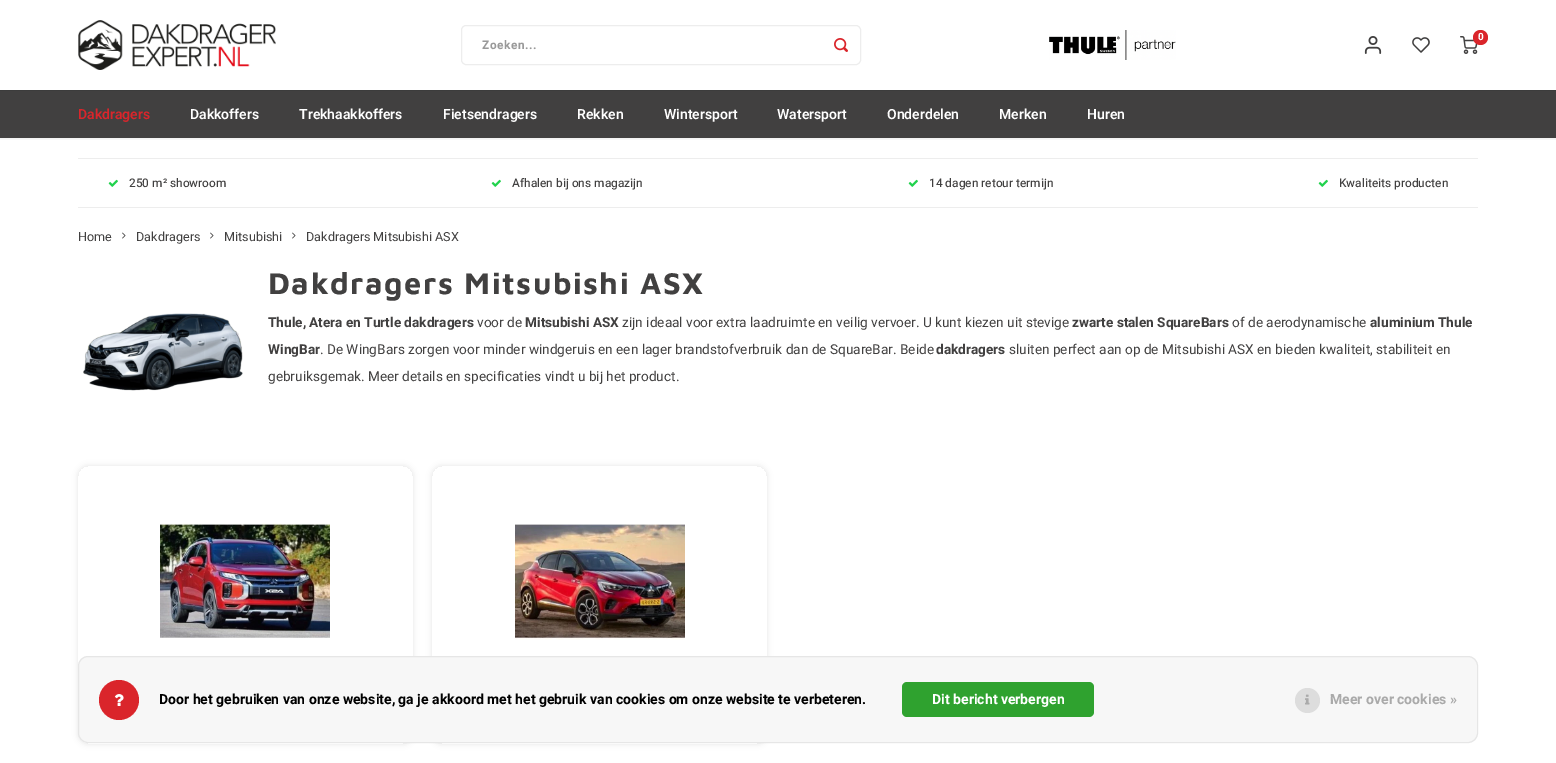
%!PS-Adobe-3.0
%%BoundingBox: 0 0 1556 763
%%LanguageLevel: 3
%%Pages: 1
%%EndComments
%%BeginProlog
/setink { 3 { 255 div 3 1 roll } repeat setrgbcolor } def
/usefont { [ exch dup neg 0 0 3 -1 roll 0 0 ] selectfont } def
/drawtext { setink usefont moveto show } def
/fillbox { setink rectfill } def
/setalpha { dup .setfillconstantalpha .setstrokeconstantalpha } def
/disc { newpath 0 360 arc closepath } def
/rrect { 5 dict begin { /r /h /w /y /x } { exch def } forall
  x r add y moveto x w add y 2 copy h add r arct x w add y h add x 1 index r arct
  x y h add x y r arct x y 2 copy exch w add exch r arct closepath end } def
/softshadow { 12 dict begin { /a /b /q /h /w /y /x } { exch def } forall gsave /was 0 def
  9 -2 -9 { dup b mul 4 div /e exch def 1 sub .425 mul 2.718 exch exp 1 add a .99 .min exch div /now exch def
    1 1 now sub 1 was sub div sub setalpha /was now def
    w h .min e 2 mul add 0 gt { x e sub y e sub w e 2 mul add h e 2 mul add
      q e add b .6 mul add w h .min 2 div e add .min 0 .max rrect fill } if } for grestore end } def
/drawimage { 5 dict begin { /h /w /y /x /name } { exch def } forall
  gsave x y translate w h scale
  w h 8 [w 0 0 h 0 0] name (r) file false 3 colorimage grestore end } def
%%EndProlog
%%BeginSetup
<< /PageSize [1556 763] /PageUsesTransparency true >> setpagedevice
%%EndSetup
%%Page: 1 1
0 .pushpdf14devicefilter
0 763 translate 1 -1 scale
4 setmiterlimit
0 0 1556 763 255 255 255 fillbox
gsave
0 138 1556 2 rectclip
0 0 0 setink
0 1 1556 138 0 2 0.08 softshadow
grestore
(assets/img1.rgb) 78 20 198 50 drawimage
(assets/img2.rgb) 1049 30 127 30 drawimage
(assets/img3.rgb) 1364 36 18 18 drawimage
(assets/img4.rgb) 1412 37 18 16 drawimage
(assets/img5.rgb) 1460 36 18 18 drawimage
218 37 43 setink
1480.5 37.5 7.5 disc fill
(0) 1478 40 /Heebo-Bold 10 255 255 255 drawtext
237 237 237 setink
461.5 25.5 399 39 4.5 rrect stroke
/Heebo-Bold 11.9 usefont
153 153 153 setink
482 49 moveto 0.5 0 (Zoeken...) ashow
(assets/img6.rgb) 834 38 14 14 drawimage
0 91 1556 47 65 64 64 fillbox
0 90 1556 1 60 60 60 fillbox
(Dakdragers) 78 119 /Heebo-SemiBold 14 218 37 43 drawtext
(Dakkoffers) 190 119 /Heebo-SemiBold 14 255 255 255 drawtext
(Trekhaakkoffers) 299 119 /Heebo-SemiBold 14 255 255 255 drawtext
(Fietsendragers) 443 119 /Heebo-SemiBold 14 255 255 255 drawtext
(Rekken) 577 119 /Heebo-SemiBold 14 255 255 255 drawtext
(Wintersport) 664 119 /Heebo-SemiBold 14 255 255 255 drawtext
(Watersport) 777 119 /Heebo-SemiBold 14 255 255 255 drawtext
(Onderdelen) 887 119 /Heebo-SemiBold 14 255 255 255 drawtext
(Merken) 999 119 /Heebo-SemiBold 14 255 255 255 drawtext
(Huren) 1087 119 /Heebo-SemiBold 14 255 255 255 drawtext
78 158 1400 1 237 237 237 fillbox
78 207 1400 1 237 237 237 fillbox
(assets/img7.rgb) 108 179 10 8 drawimage
(250 m² showroom) 129 187 /Heebo-Medium 11.9 65 64 64 drawtext
(assets/img7.rgb) 491 179 10 8 drawimage
(Afhalen bij ons magazijn) 512 187 /Heebo-Medium 11.9 65 64 64 drawtext
(assets/img7.rgb) 908 179 10 8 drawimage
(14 dagen retour termijn) 929 187 /Heebo-Medium 11.9 65 64 64 drawtext
(assets/img7.rgb) 1318 179 10 8 drawimage
(Kwaliteits producten) 1339 187 /Heebo-Medium 11.9 65 64 64 drawtext
(Home) 78 241 /Heebo-Regular 12.6 65 64 64 drawtext
(assets/img8.rgb) 122 232 4 7 drawimage
(Dakdragers) 136 241 /Heebo-Regular 12.6 65 64 64 drawtext
(assets/img8.rgb) 210 232 4 7 drawimage
(Mitsubishi) 224 241 /Heebo-Regular 12.6 65 64 64 drawtext
(assets/img8.rgb) 292 232 4 7 drawimage
(Dakdragers Mitsubishi ASX) 306 241 /Heebo-Regular 12.6 65 64 64 drawtext
(assets/img9.rgb) 83 313 160 78 drawimage
/MavenPro-Bold 30.75 usefont
268 294 moveto 1.55 0 (Dakdragers Mitsubishi ASX) ashow
(Thule, Atera en Turtle dakdragers) 268 327 /Heebo-Bold 13.6 65 64 64 drawtext
(voor de) 477 327 /Heebo-Regular 13.6 65 64 64 drawtext
(Mitsubishi ASX) 525 327 /Heebo-Bold 13.6 65 64 64 drawtext
(zijn ideaal voor extra laadruimte en veilig vervoer. U kunt kiezen uit stevige) 622 327 /Heebo-Regular 13.6 65 64 64 drawtext
(zwarte stalen SquareBars) 1072 327 /Heebo-Bold 13.6 65 64 64 drawtext
(of de aerodynamische) 1232 327 /Heebo-Regular 13.6 65 64 64 drawtext
(aluminium Thule) 1370 327 /Heebo-Bold 13.6 65 64 64 drawtext
(WingBar) 268 354 /Heebo-Bold 13.6 65 64 64 drawtext
(. De WingBars zorgen voor minder windgeruis en een lager brandstofverbruik dan de SquareBar. Beide) 320 354 /Heebo-Regular 13.6 65 64 64 drawtext
(dakdragers) 936 354 /Heebo-Bold 13.6 65 64 64 drawtext
(sluiten perfect aan op de Mitsubishi ASX en bieden kwaliteit, stabiliteit en) 1009 354 /Heebo-Regular 13.6 65 64 64 drawtext
(gebruiksgemak. Meer details en specificaties vindt u bij het product.) 268 381 /Heebo-Regular 13.6 65 64 64 drawtext
gsave
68 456 moveto 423 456 lineto 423 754 lineto 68 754 lineto closepath 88 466 moveto 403 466 lineto 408.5 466 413 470.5 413 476 curveto 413 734 lineto 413 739.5 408.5 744 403 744 curveto 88 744 lineto 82.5 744 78 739.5 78 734 curveto 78 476 lineto 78 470.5 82.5 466 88 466 curveto closepath eoclip newpath
0 0 0 setink
78 466 335 278 10 3 0.1 softshadow
grestore
(assets/img10.rgb) 160 523 170 115 drawimage
gsave
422 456 moveto 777 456 lineto 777 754 lineto 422 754 lineto closepath 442 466 moveto 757 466 lineto 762.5 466 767 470.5 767 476 curveto 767 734 lineto 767 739.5 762.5 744 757 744 curveto 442 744 lineto 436.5 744 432 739.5 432 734 curveto 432 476 lineto 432 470.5 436.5 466 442 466 curveto closepath eoclip newpath
0 0 0 setink
432 466 335 278 10 3 0.1 softshadow
grestore
(assets/img11.rgb) 515 524 170 116 drawimage
247 247 247 setink
78 656 1400 87 10 rrect fill
0.07 setalpha
0 0 0 setink
78.5 656.5 1399 86 9.5 rrect stroke
1 setalpha
218 37 43 setink
119 700 20 disc fill
(assets/img12.rgb) 114 694 10 12 drawimage
(Door het gebruiken van onze website, ga je akkoord met het gebruik van cookies om onze website te verbeteren.) 159 704 /Heebo-Bold 14 0 0 0 drawtext
47 162 47 setink
902 682 192 35 5 rrect fill
(Dit bericht verbergen) 932 704 /Heebo-Bold 14 255 255 255 drawtext
221 221 221 setink
1307.5 700.5 12.5 disc fill
(assets/img13.rgb) 1305 694 5 11 drawimage
(Meer over cookies ») 1330 704 /Heebo-Bold 14 170 170 170 drawtext
.poppdf14devicefilter showpage
%%EOF
